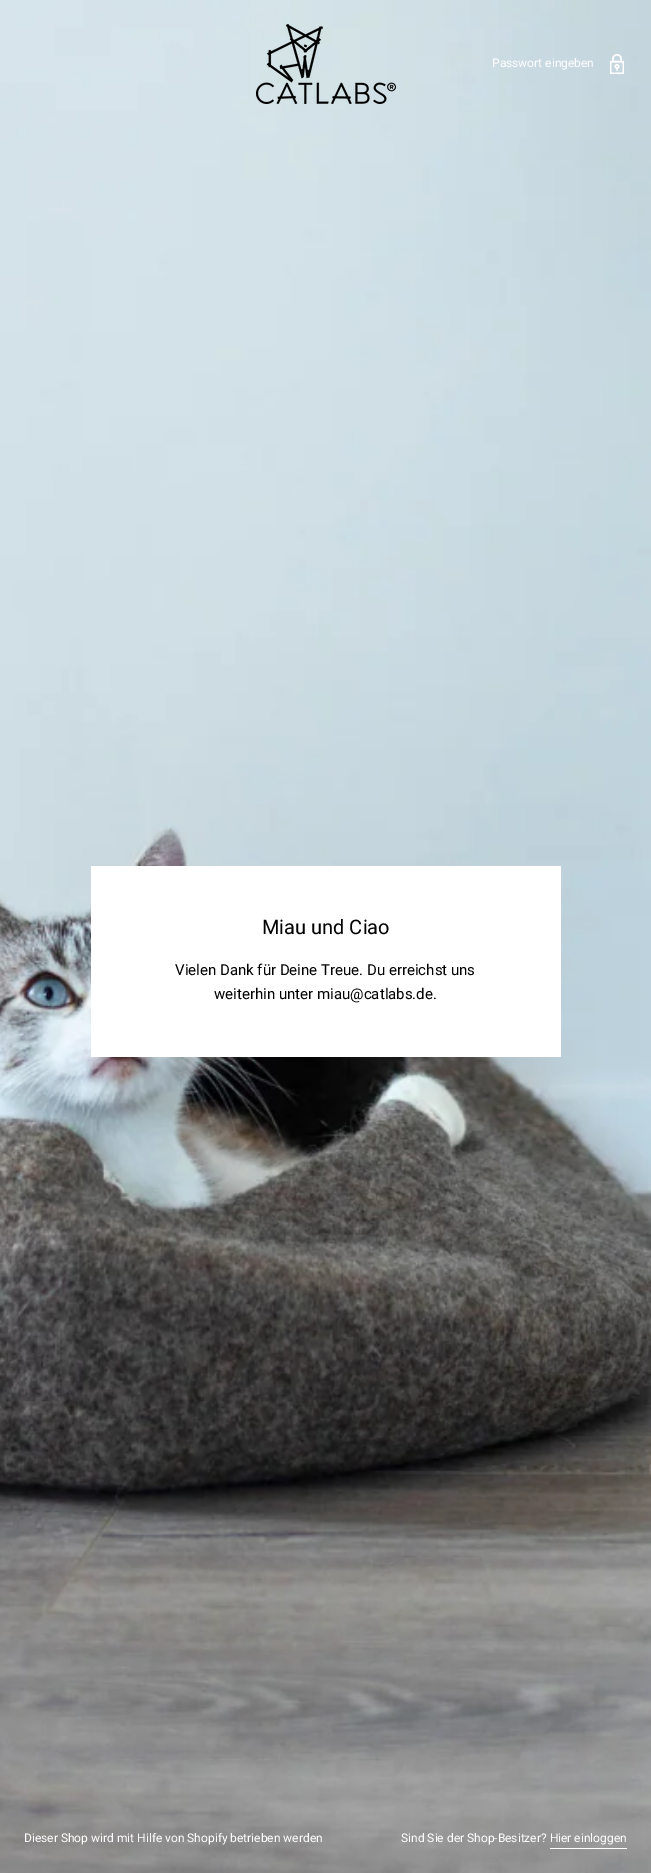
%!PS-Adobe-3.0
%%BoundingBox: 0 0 651 1873
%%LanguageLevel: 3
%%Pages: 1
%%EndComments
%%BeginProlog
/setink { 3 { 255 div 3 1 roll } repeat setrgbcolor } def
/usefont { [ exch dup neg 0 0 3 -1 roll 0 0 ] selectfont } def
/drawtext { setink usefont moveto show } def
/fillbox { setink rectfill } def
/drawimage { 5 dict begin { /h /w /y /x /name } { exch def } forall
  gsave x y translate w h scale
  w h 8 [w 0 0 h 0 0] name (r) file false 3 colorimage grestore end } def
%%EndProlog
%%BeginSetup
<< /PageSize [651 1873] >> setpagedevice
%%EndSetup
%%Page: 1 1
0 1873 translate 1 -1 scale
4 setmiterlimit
0 0 651 1873 255 255 255 fillbox
(assets/img1.rgb) 0 0 651 1873 drawimage
(assets/img2.rgb) 256 24 140 80 drawimage
(Passwort eingeben) 492 67 /Roboto-Regular 12 255 255 255 drawtext
(assets/img3.rgb) 610 54 14 20 drawimage
91 866 470 191 255 255 255 fillbox
(Miau und Ciao) 262 934 /Roboto-Regular 20 0 0 0 drawtext
(Vielen Dank für Deine Treue. Du erreichst uns) 175 975 /Roboto-Regular 15 0 0 0 drawtext
(weiterhin unter miau@catlabs.de.) 214 999 /Roboto-Regular 15 0 0 0 drawtext
(Dieser Shop wird mit Hilfe von Shopify betrieben werden) 24 1842 /Roboto-Regular 12 255 255 255 drawtext
(Sind Sie der Shop-Besitzer? Hier einloggen) 401 1842 /Roboto-Regular 12 255 255 255 drawtext
550 1848 77 1 255 255 255 fillbox
showpage
%%EOF
